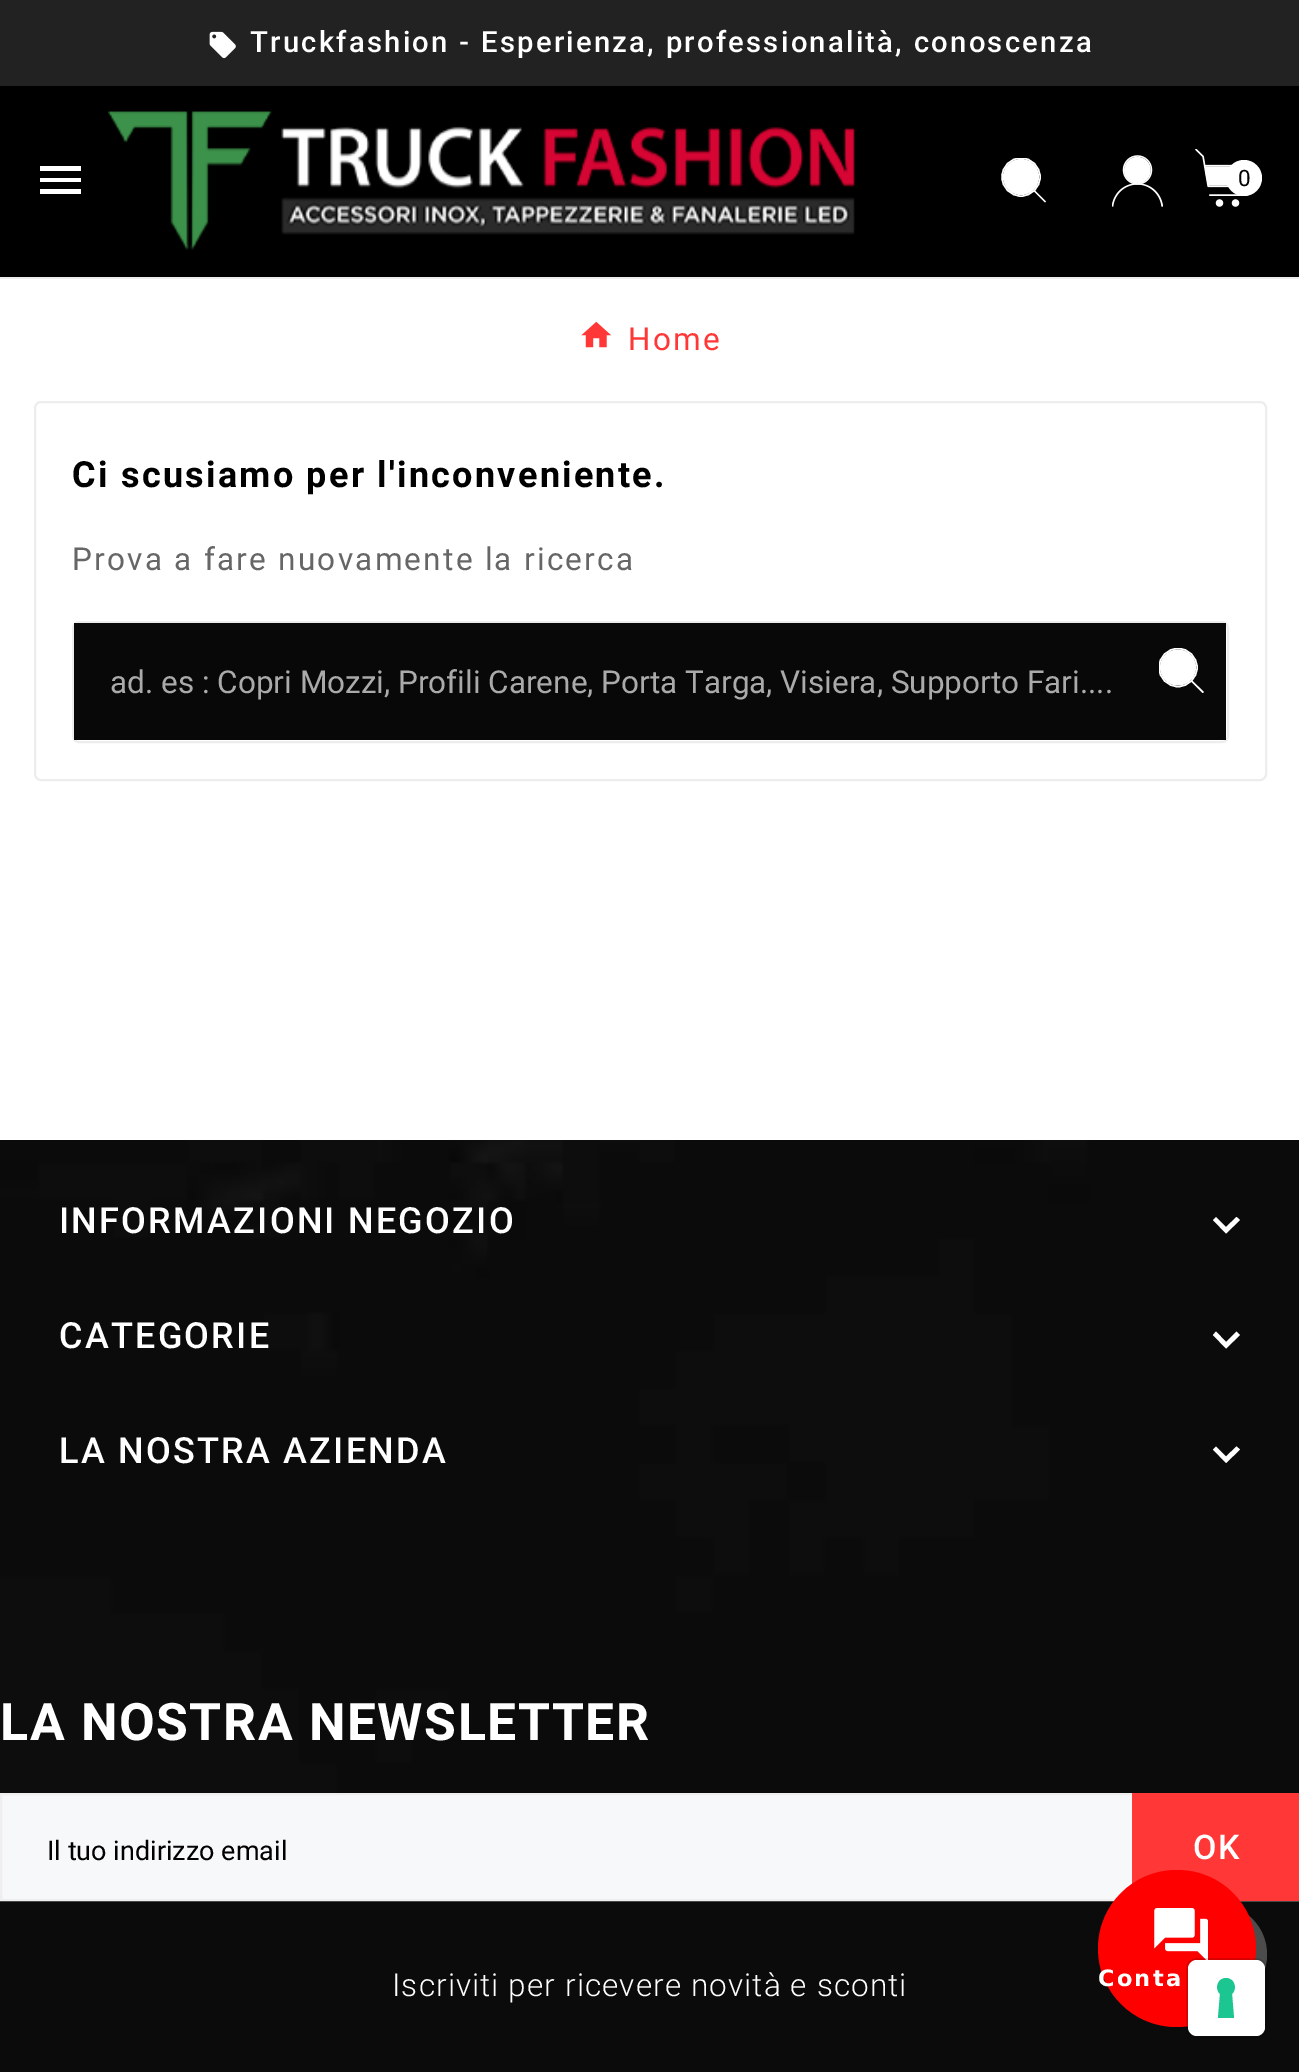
%!PS-Adobe-3.0
%%BoundingBox: 0 0 1299 2072
%%LanguageLevel: 3
%%Pages: 1
%%EndComments
%%BeginProlog
/setink { 3 { 255 div 3 1 roll } repeat setrgbcolor } def
/usefont { [ exch dup neg 0 0 3 -1 roll 0 0 ] selectfont } def
/drawtext { setink usefont moveto show } def
/fillbox { setink rectfill } def
/setalpha { dup .setfillconstantalpha .setstrokeconstantalpha } def
/disc { newpath 0 360 arc closepath } def
/rrect { 5 dict begin { /r /h /w /y /x } { exch def } forall
  x r add y moveto x w add y 2 copy h add r arct x w add y h add x 1 index r arct
  x y h add x y r arct x y 2 copy exch w add exch r arct closepath end } def
/drawimage { 5 dict begin { /h /w /y /x /name } { exch def } forall
  gsave x y translate w h scale
  w h 8 [w 0 0 h 0 0] name (r) file false 3 colorimage grestore end } def
%%EndProlog
%%BeginSetup
<< /PageSize [1299 2072] /PageUsesTransparency true >> setpagedevice
%%EndSetup
%%Page: 1 1
0 .pushpdf14devicefilter
0 2072 translate 1 -1 scale
4 setmiterlimit
0 0 1299 2072 255 255 255 fillbox
0 277 1299 2 237 237 237 fillbox
0 0 1299 86 34 34 34 fillbox
(assets/img1.rgb) 209 31 27 28 drawimage
/Roboto-Medium 29.25 usefont
255 255 255 setink
250 52 moveto 2.25 0 (Truckfashion - Esperienza, professionalità, conoscenza) ashow
0 86 1299 191 0 0 0 fillbox
255 255 255 setink
40 166 moveto 81 166 lineto 81 171 lineto 40 171 lineto closepath 40 182 moveto 40 178 lineto 81 178 lineto 81 182 lineto closepath 40 194 moveto 40 189 lineto 81 189 lineto 81 194 lineto closepath fill
(assets/img2.rgb) 108 111 747 139 drawimage
1045 202.5 moveto 1033.5 191 lineto 1034.5 190 lineto 1046 201.5 lineto closepath fill
1021 177 18 disc fill
gsave
1001 158 45 45 rectclip
1.5 setlinewidth
1021 177 19 disc stroke
grestore
(assets/img3.rgb) 1112 155 51 52 drawimage
(assets/img4.rgb) 1195 149 54 58 drawimage
1244 178 18 disc fill
/Roboto-Regular 22.5 usefont
0 0 0 setink
1238 186 moveto 2.25 0 (0) ashow
(assets/img5.rgb) 581 321 31 27 drawimage
/Roboto-Regular 31.5 usefont
255 55 55 setink
628 350 moveto 2.25 0 (Home) ashow
237 237 237 setink
2 setlinewidth
35 402 1231 378 6 rrect stroke
/Roboto-Bold 36 usefont
0 0 0 setink
72 487 moveto 2.25 0 (Ci scusiamo per l'inconveniente.) ashow
/Roboto-Regular 31.5 usefont
102 102 102 setink
72 570 moveto 2.25 0 (Prova a fare nuovamente la ricerca) ashow
237 237 237 setink
73 622 1155 120 6 rrect stroke
74 623 1152 117 8 8 8 fillbox
(ad. es : Copri Mozzi, Profili Carene, Porta Targa, Visiera, Supporto Fari....) 110 693 /Roboto-Regular 31.5 170 170 170 drawtext
255 255 255 setink
1202.5 693 moveto 1191 681.5 lineto 1192 680.5 lineto 1204 692 lineto closepath fill
1178 667.5 18 disc fill
gsave
1159 648 45 45 rectclip
1.5 setlinewidth
1178 667.5 19 disc stroke
grestore
(assets/img6.rgb) 0 1140 1299 932 drawimage
/Roboto-Medium 36 usefont
59 1233 moveto 2.25 0 (INFORMAZIONI NEGOZIO) ashow
1216 1217 moveto 1226 1227 lineto 1236.5 1217 lineto 1240 1220 lineto 1226 1233.5 lineto 1213 1220 lineto closepath fill
59 1348 moveto 2.25 0 (CATEGORIE) ashow
1216 1331.5 moveto 1226 1342 lineto 1236.5 1331.5 lineto 1240 1335 lineto 1226 1348.5 lineto 1213 1335 lineto closepath fill
59 1463 moveto 2.25 0 (LA NOSTRA AZIENDA) ashow
1216 1446.5 moveto 1226 1456.5 lineto 1236.5 1446.5 lineto 1240 1449.5 lineto 1226 1463 lineto 1213 1449.5 lineto closepath fill
/Roboto-Bold 51.75 usefont
0 1740 moveto 1.6 0 (LA NOSTRA NEWSLETTER) ashow
2 1795 1130 104 247 248 250 fillbox
238 238 238 setink
1 1794 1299 106 rectstroke
(Il tuo indirizzo email) 47 1860 /Roboto-Regular 27 0 0 0 drawtext
1132 1793 167 108 255 55 55 fillbox
/Roboto-Medium 34 usefont
255 255 255 setink
1193 1859 moveto 1.1 0 (OK) ashow
/Roboto-Light 31.5 usefont
392 1996 moveto 1.1 0 (Iscriviti per ricevere novità e sconti) ashow
76 76 76 setink
1216.5 1954.5 50.5 disc fill
255 0 0 setink
1098 1870 158 157 78.5 rrect fill
(assets/img7.rgb) 1154 1908 54 52 drawimage
/DejaVuSans-Bold 22.5 usefont
255 255 255 setink
1098 1986 moveto 2.25 0 (Conta) ashow
0.15 setalpha
0 0 0 setink
1187 1959 79 79 10 rrect stroke
1 setalpha
255 255 255 setink
1188 1960 77 76 9 rrect fill
28 198 145 setink
1226 1978 moveto 1234 1978 1238 1988 1232 1994 curveto 1234 2018 lineto 1218 2018 lineto 1220 1994 lineto 1214 1988 1218 1978 1226 1978 curveto closepath eofill
.poppdf14devicefilter showpage
%%EOF
